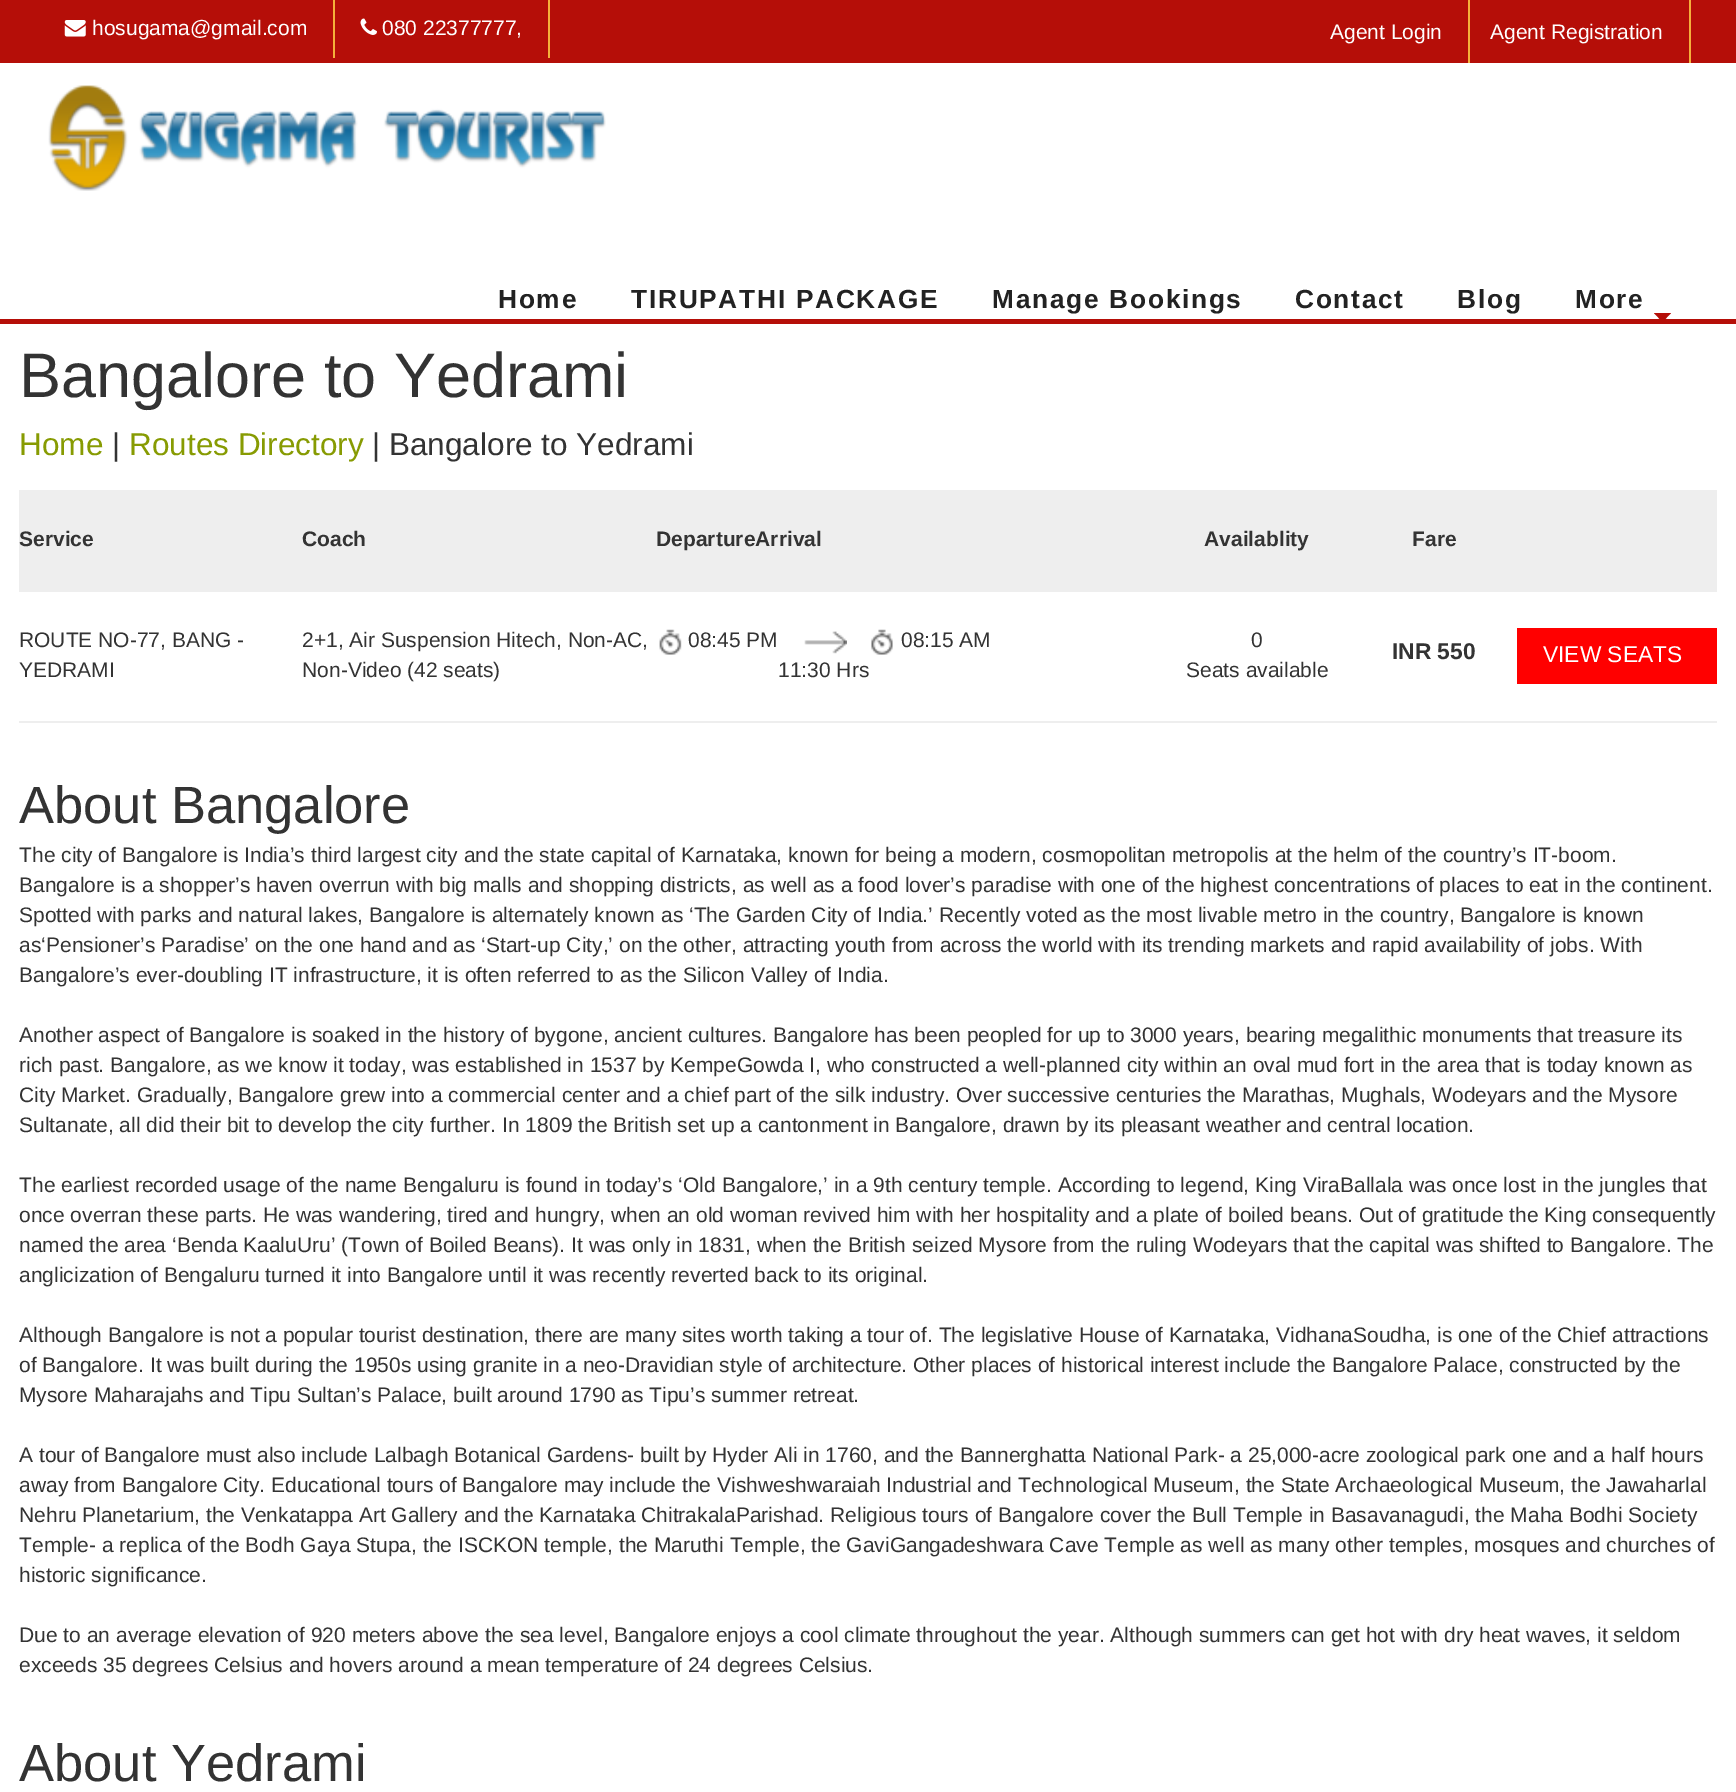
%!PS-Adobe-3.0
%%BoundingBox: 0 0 1736 1792
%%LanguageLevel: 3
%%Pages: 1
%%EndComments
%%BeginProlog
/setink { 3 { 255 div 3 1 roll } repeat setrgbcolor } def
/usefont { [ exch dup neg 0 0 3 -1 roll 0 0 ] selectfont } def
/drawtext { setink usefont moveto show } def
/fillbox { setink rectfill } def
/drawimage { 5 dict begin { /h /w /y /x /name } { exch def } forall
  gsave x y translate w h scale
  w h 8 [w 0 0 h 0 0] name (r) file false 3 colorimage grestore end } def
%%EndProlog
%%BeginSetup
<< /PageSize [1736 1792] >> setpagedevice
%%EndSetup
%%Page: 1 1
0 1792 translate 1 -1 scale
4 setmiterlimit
0 0 1736 1792 255 255 255 fillbox
0 0 1736 63 181 14 8 fillbox
333 0 2 58 245 176 59 fillbox
(assets/img1.rgb) 64 20 22 17 drawimage
(hosugama@gmail.com) 92 35 /LiberationSans-Regular 21 255 255 255 drawtext
548 0 2 58 245 176 59 fillbox
(assets/img2.rgb) 360 18 17 17 drawimage
(080 22377777,) 382 35 /LiberationSans-Regular 21 255 255 255 drawtext
1468 0 2 63 245 176 59 fillbox
(Agent Login) 1330 39 /LiberationSans-Regular 21 255 255 255 drawtext
1689 0 2 63 245 176 59 fillbox
(Agent Registration) 1490 39 /LiberationSans-Regular 21 255 255 255 drawtext
0 319 1736 5 181 14 8 fillbox
(assets/img3.rgb) 48 85 558 106 drawimage
/LiberationSans-Bold 26.25 usefont
34 34 34 setink
498 308 moveto 1.75 0 (Home) ashow
631 308 moveto 1.75 0 (TIRUPATHI PACKAGE) ashow
992 308 moveto 1.75 0 (Manage Bookings) ashow
1295 308 moveto 1.75 0 (Contact) ashow
1457 308 moveto 1.75 0 (Blog) ashow
1575 308 moveto 1.75 0 (More) ashow
181 14 8 setink
1654 313 moveto 1671 313 lineto 1662.5 322 lineto closepath fill
(Bangalore to Yedrami) 19 397 /LiberationSans-Regular 63 51 51 51 drawtext
(Home) 19 455 /LiberationSans-Regular 31.5 135 155 2 drawtext
(|) 112 455 /LiberationSans-Regular 31.5 51 51 51 drawtext
(Routes Directory) 129 455 /LiberationSans-Regular 31.5 135 155 2 drawtext
(| Bangalore to Yedrami) 372 455 /LiberationSans-Regular 31.5 51 51 51 drawtext
19 490 1698 102 238 238 238 fillbox
(Service) 19 546 /LiberationSans-Bold 21 51 51 51 drawtext
(Coach) 302 546 /LiberationSans-Bold 21 51 51 51 drawtext
(DepartureArrival) 656 546 /LiberationSans-Bold 21 51 51 51 drawtext
(Availablity) 1204 546 /LiberationSans-Bold 21 51 51 51 drawtext
(Fare) 1412 546 /LiberationSans-Bold 21 51 51 51 drawtext
19 721 1698 2 238 238 238 fillbox
(ROUTE NO-77, BANG -) 19 647 /LiberationSans-Regular 21 51 51 51 drawtext
(YEDRAMI) 19 677 /LiberationSans-Regular 21 51 51 51 drawtext
(2+1, Air Suspension Hitech, Non-AC,) 302 647 /LiberationSans-Regular 21 51 51 51 drawtext
(Non-Video \(42 seats\)) 302 677 /LiberationSans-Regular 21 51 51 51 drawtext
(assets/img4.rgb) 659 629 23 26 drawimage
(08:45 PM) 688 647 /LiberationSans-Regular 21 51 51 51 drawtext
(assets/img5.rgb) 871 629 22 26 drawimage
(08:15 AM) 901 647 /LiberationSans-Regular 21 51 51 51 drawtext
(assets/img6.rgb) 804 631 43 23 drawimage
(11:30 Hrs) 778 677 /LiberationSans-Regular 21 51 51 51 drawtext
(0) 1251 647 /LiberationSans-Regular 21 51 51 51 drawtext
(Seats available) 1186 677 /LiberationSans-Regular 21 51 51 51 drawtext
(INR 550) 1392 659 /LiberationSans-Bold 22.75 51 51 51 drawtext
1517 628 200 56 255 0 0 fillbox
(VIEW SEATS) 1543 662 /LiberationSans-Regular 22.75 255 255 255 drawtext
(About Bangalore) 19 823 /LiberationSans-Regular 52.5 51 51 51 drawtext
(The city of Bangalore is India’s third largest city and the state capital of Karnataka, known for being a modern, cosmopolitan metropolis at the helm of the country’s IT-boom.) 19 862 /LiberationSans-Regular 21 51 51 51 drawtext
(Bangalore is a shopper’s haven overrun with big malls and shopping districts, as well as a food lover’s paradise with one of the highest concentrations of places to eat in the continent.) 19 892 /LiberationSans-Regular 21 51 51 51 drawtext
(Spotted with parks and natural lakes, Bangalore is alternately known as ‘The Garden City of India.’ Recently voted as the most livable metro in the country, Bangalore is known) 19 922 /LiberationSans-Regular 21 51 51 51 drawtext
(as‘Pensioner’s Paradise’ on the one hand and as ‘Start-up City,’ on the other, attracting youth from across the world with its trending markets and rapid availability of jobs. With) 19 952 /LiberationSans-Regular 21 51 51 51 drawtext
(Bangalore’s ever-doubling IT infrastructure, it is often referred to as the Silicon Valley of India.) 19 982 /LiberationSans-Regular 21 51 51 51 drawtext
(Another aspect of Bangalore is soaked in the history of bygone, ancient cultures. Bangalore has been peopled for up to 3000 years, bearing megalithic monuments that treasure its) 19 1042 /LiberationSans-Regular 21 51 51 51 drawtext
(rich past. Bangalore, as we know it today, was established in 1537 by KempeGowda I, who constructed a well-planned city within an oval mud fort in the area that is today known as) 19 1072 /LiberationSans-Regular 21 51 51 51 drawtext
(City Market. Gradually, Bangalore grew into a commercial center and a chief part of the silk industry. Over successive centuries the Marathas, Mughals, Wodeyars and the Mysore) 19 1102 /LiberationSans-Regular 21 51 51 51 drawtext
(Sultanate, all did their bit to develop the city further. In 1809 the British set up a cantonment in Bangalore, drawn by its pleasant weather and central location.) 19 1132 /LiberationSans-Regular 21 51 51 51 drawtext
(The earliest recorded usage of the name Bengaluru is found in today’s ‘Old Bangalore,’ in a 9th century temple. According to legend, King ViraBallala was once lost in the jungles that) 19 1192 /LiberationSans-Regular 21 51 51 51 drawtext
(once overran these parts. He was wandering, tired and hungry, when an old woman revived him with her hospitality and a plate of boiled beans. Out of gratitude the King consequently) 19 1222 /LiberationSans-Regular 21 51 51 51 drawtext
(named the area ‘Benda KaaluUru’ \(Town of Boiled Beans\). It was only in 1831, when the British seized Mysore from the ruling Wodeyars that the capital was shifted to Bangalore. The) 19 1252 /LiberationSans-Regular 21 51 51 51 drawtext
(anglicization of Bengaluru turned it into Bangalore until it was recently reverted back to its original.) 19 1282 /LiberationSans-Regular 21 51 51 51 drawtext
(Although Bangalore is not a popular tourist destination, there are many sites worth taking a tour of. The legislative House of Karnataka, VidhanaSoudha, is one of the Chief attractions) 19 1342 /LiberationSans-Regular 21 51 51 51 drawtext
(of Bangalore. It was built during the 1950s using granite in a neo-Dravidian style of architecture. Other places of historical interest include the Bangalore Palace, constructed by the) 19 1372 /LiberationSans-Regular 21 51 51 51 drawtext
(Mysore Maharajahs and Tipu Sultan’s Palace, built around 1790 as Tipu’s summer retreat.) 19 1402 /LiberationSans-Regular 21 51 51 51 drawtext
(A tour of Bangalore must also include Lalbagh Botanical Gardens- built by Hyder Ali in 1760, and the Bannerghatta National Park- a 25,000-acre zoological park one and a half hours) 19 1462 /LiberationSans-Regular 21 51 51 51 drawtext
(away from Bangalore City. Educational tours of Bangalore may include the Vishweshwaraiah Industrial and Technological Museum, the State Archaeological Museum, the Jawaharlal) 19 1492 /LiberationSans-Regular 21 51 51 51 drawtext
(Nehru Planetarium, the Venkatappa Art Gallery and the Karnataka ChitrakalaParishad. Religious tours of Bangalore cover the Bull Temple in Basavanagudi, the Maha Bodhi Society) 19 1522 /LiberationSans-Regular 21 51 51 51 drawtext
(Temple- a replica of the Bodh Gaya Stupa, the ISCKON temple, the Maruthi Temple, the GaviGangadeshwara Cave Temple as well as many other temples, mosques and churches of) 19 1552 /LiberationSans-Regular 21 51 51 51 drawtext
(historic significance.) 19 1582 /LiberationSans-Regular 21 51 51 51 drawtext
(Due to an average elevation of 920 meters above the sea level, Bangalore enjoys a cool climate throughout the year. Although summers can get hot with dry heat waves, it seldom) 19 1642 /LiberationSans-Regular 21 51 51 51 drawtext
(exceeds 35 degrees Celsius and hovers around a mean temperature of 24 degrees Celsius.) 19 1672 /LiberationSans-Regular 21 51 51 51 drawtext
(About Yedrami) 19 1781 /LiberationSans-Regular 52.5 51 51 51 drawtext
showpage
%%EOF
